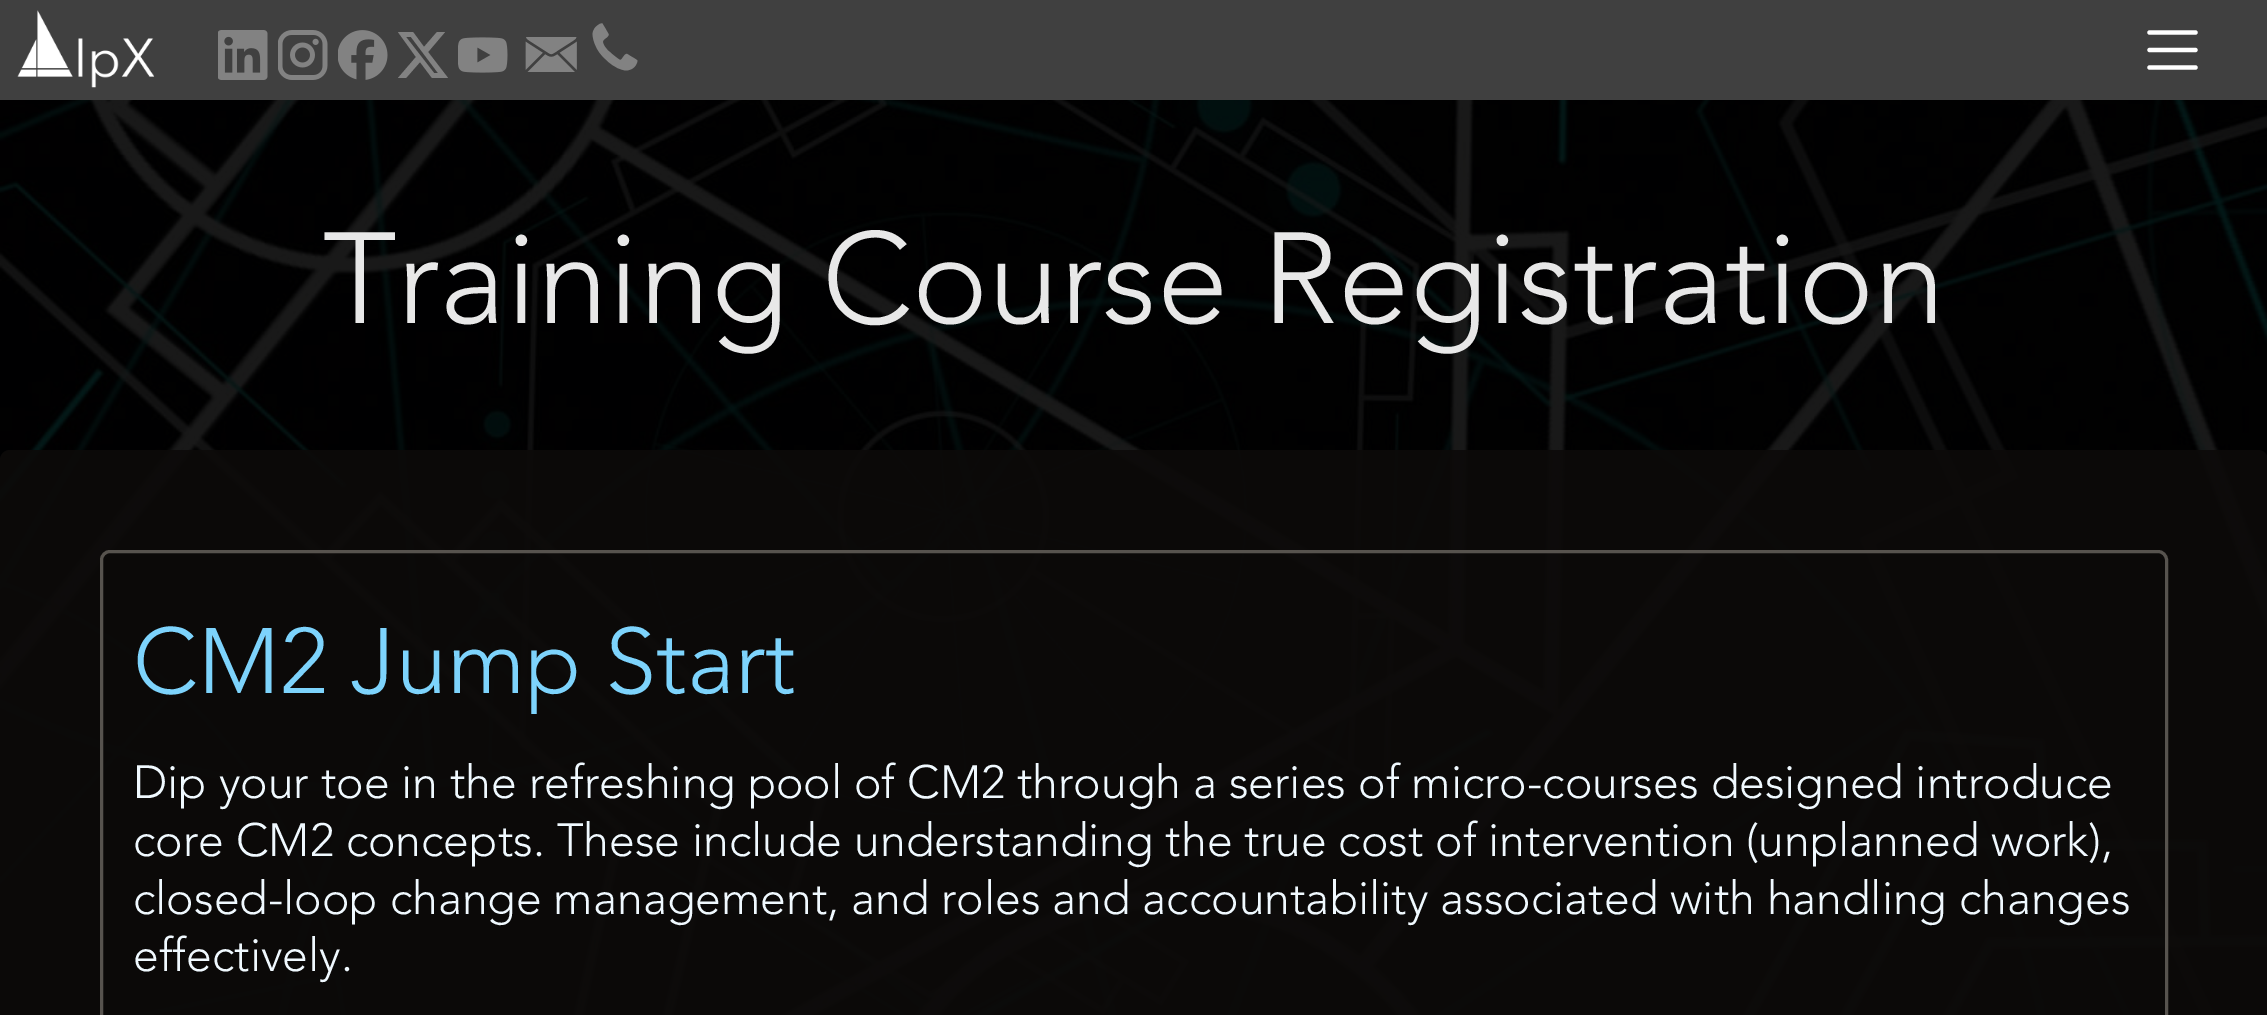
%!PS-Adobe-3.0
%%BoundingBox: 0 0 2267 1015
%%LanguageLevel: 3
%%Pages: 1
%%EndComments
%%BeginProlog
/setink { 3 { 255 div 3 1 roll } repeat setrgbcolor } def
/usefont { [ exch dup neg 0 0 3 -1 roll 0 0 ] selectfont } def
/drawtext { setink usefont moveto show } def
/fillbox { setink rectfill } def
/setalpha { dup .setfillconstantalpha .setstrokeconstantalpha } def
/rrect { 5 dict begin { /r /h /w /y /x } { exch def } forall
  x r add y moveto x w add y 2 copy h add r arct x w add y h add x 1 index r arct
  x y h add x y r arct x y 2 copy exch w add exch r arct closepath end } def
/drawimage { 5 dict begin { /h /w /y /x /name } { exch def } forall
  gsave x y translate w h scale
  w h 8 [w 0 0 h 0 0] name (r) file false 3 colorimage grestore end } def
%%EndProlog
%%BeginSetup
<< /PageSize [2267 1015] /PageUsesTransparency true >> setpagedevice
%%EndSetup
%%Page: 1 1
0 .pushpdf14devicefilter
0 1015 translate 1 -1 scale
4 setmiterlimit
0 0 2267 1015 255 255 255 fillbox
(assets/img1.rgb) 0 100 2267 915 drawimage
0 0 2267 100 64 64 64 fillbox
(assets/img2.rgb) 17 10 138 78 drawimage
(assets/img3.rgb) 218 30 50 50 drawimage
(assets/img4.rgb) 278 30 50 50 drawimage
(assets/img5.rgb) 338 30 50 50 drawimage
130 130 130 setink
437 32 moveto 445 32 lineto 428 52 lineto 448 78 lineto 432 78 lineto 420 62 lineto 406 78 lineto 398 78 lineto 416 57 lineto 398 32 lineto 413 32 lineto 424 47 lineto closepath 434 73 moveto 438 73 lineto 411 37 lineto 406 37 lineto closepath fill
(assets/img6.rgb) 458 37 50 36 drawimage
(assets/img7.rgb) 525 37 52 35 drawimage
(assets/img8.rgb) 592 23 46 48 drawimage
255 255 255 setink
4.2 setlinewidth
1 setlinecap
1 setlinejoin
2195.5 32.5 moveto 2149.5 32.5 lineto 2149.5 67.5 moveto 2195.5 67.5 lineto stroke
0 setlinejoin
2149.5 50 moveto 2195.5 50 lineto stroke
(Training Course Registration) 323 323 /Avenir-Light 128.25 232 232 232 drawtext
0.9 setalpha
12 10 9 setink
0 450 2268 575 10 rrect fill
1 setalpha
87 83 78 setink
3 setlinewidth
0 setlinecap
101.5 551.5 2065 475 8.5 rrect stroke
(CM2 Jump Start) 133 693 /Avenir-Light 92 125 211 252 drawtext
/Avenir-Light 46.35 usefont
240 249 255 setink
133 798 moveto -0.2 0 32 (Dip your toe in the refreshing pool of CM2 through a series of micro-courses designed introduce) widthshow
133 856 moveto -0.25 0 32 (core CM2 concepts. These include understanding the true cost of intervention \(unplanned work\),) widthshow
133 914 moveto -0.25 0 32 (closed-loop change management, and roles and accountability associated with handling changes) widthshow
(effectively.) 133 971 /Avenir-Light 46.35 240 249 255 drawtext
.poppdf14devicefilter showpage
%%EOF
